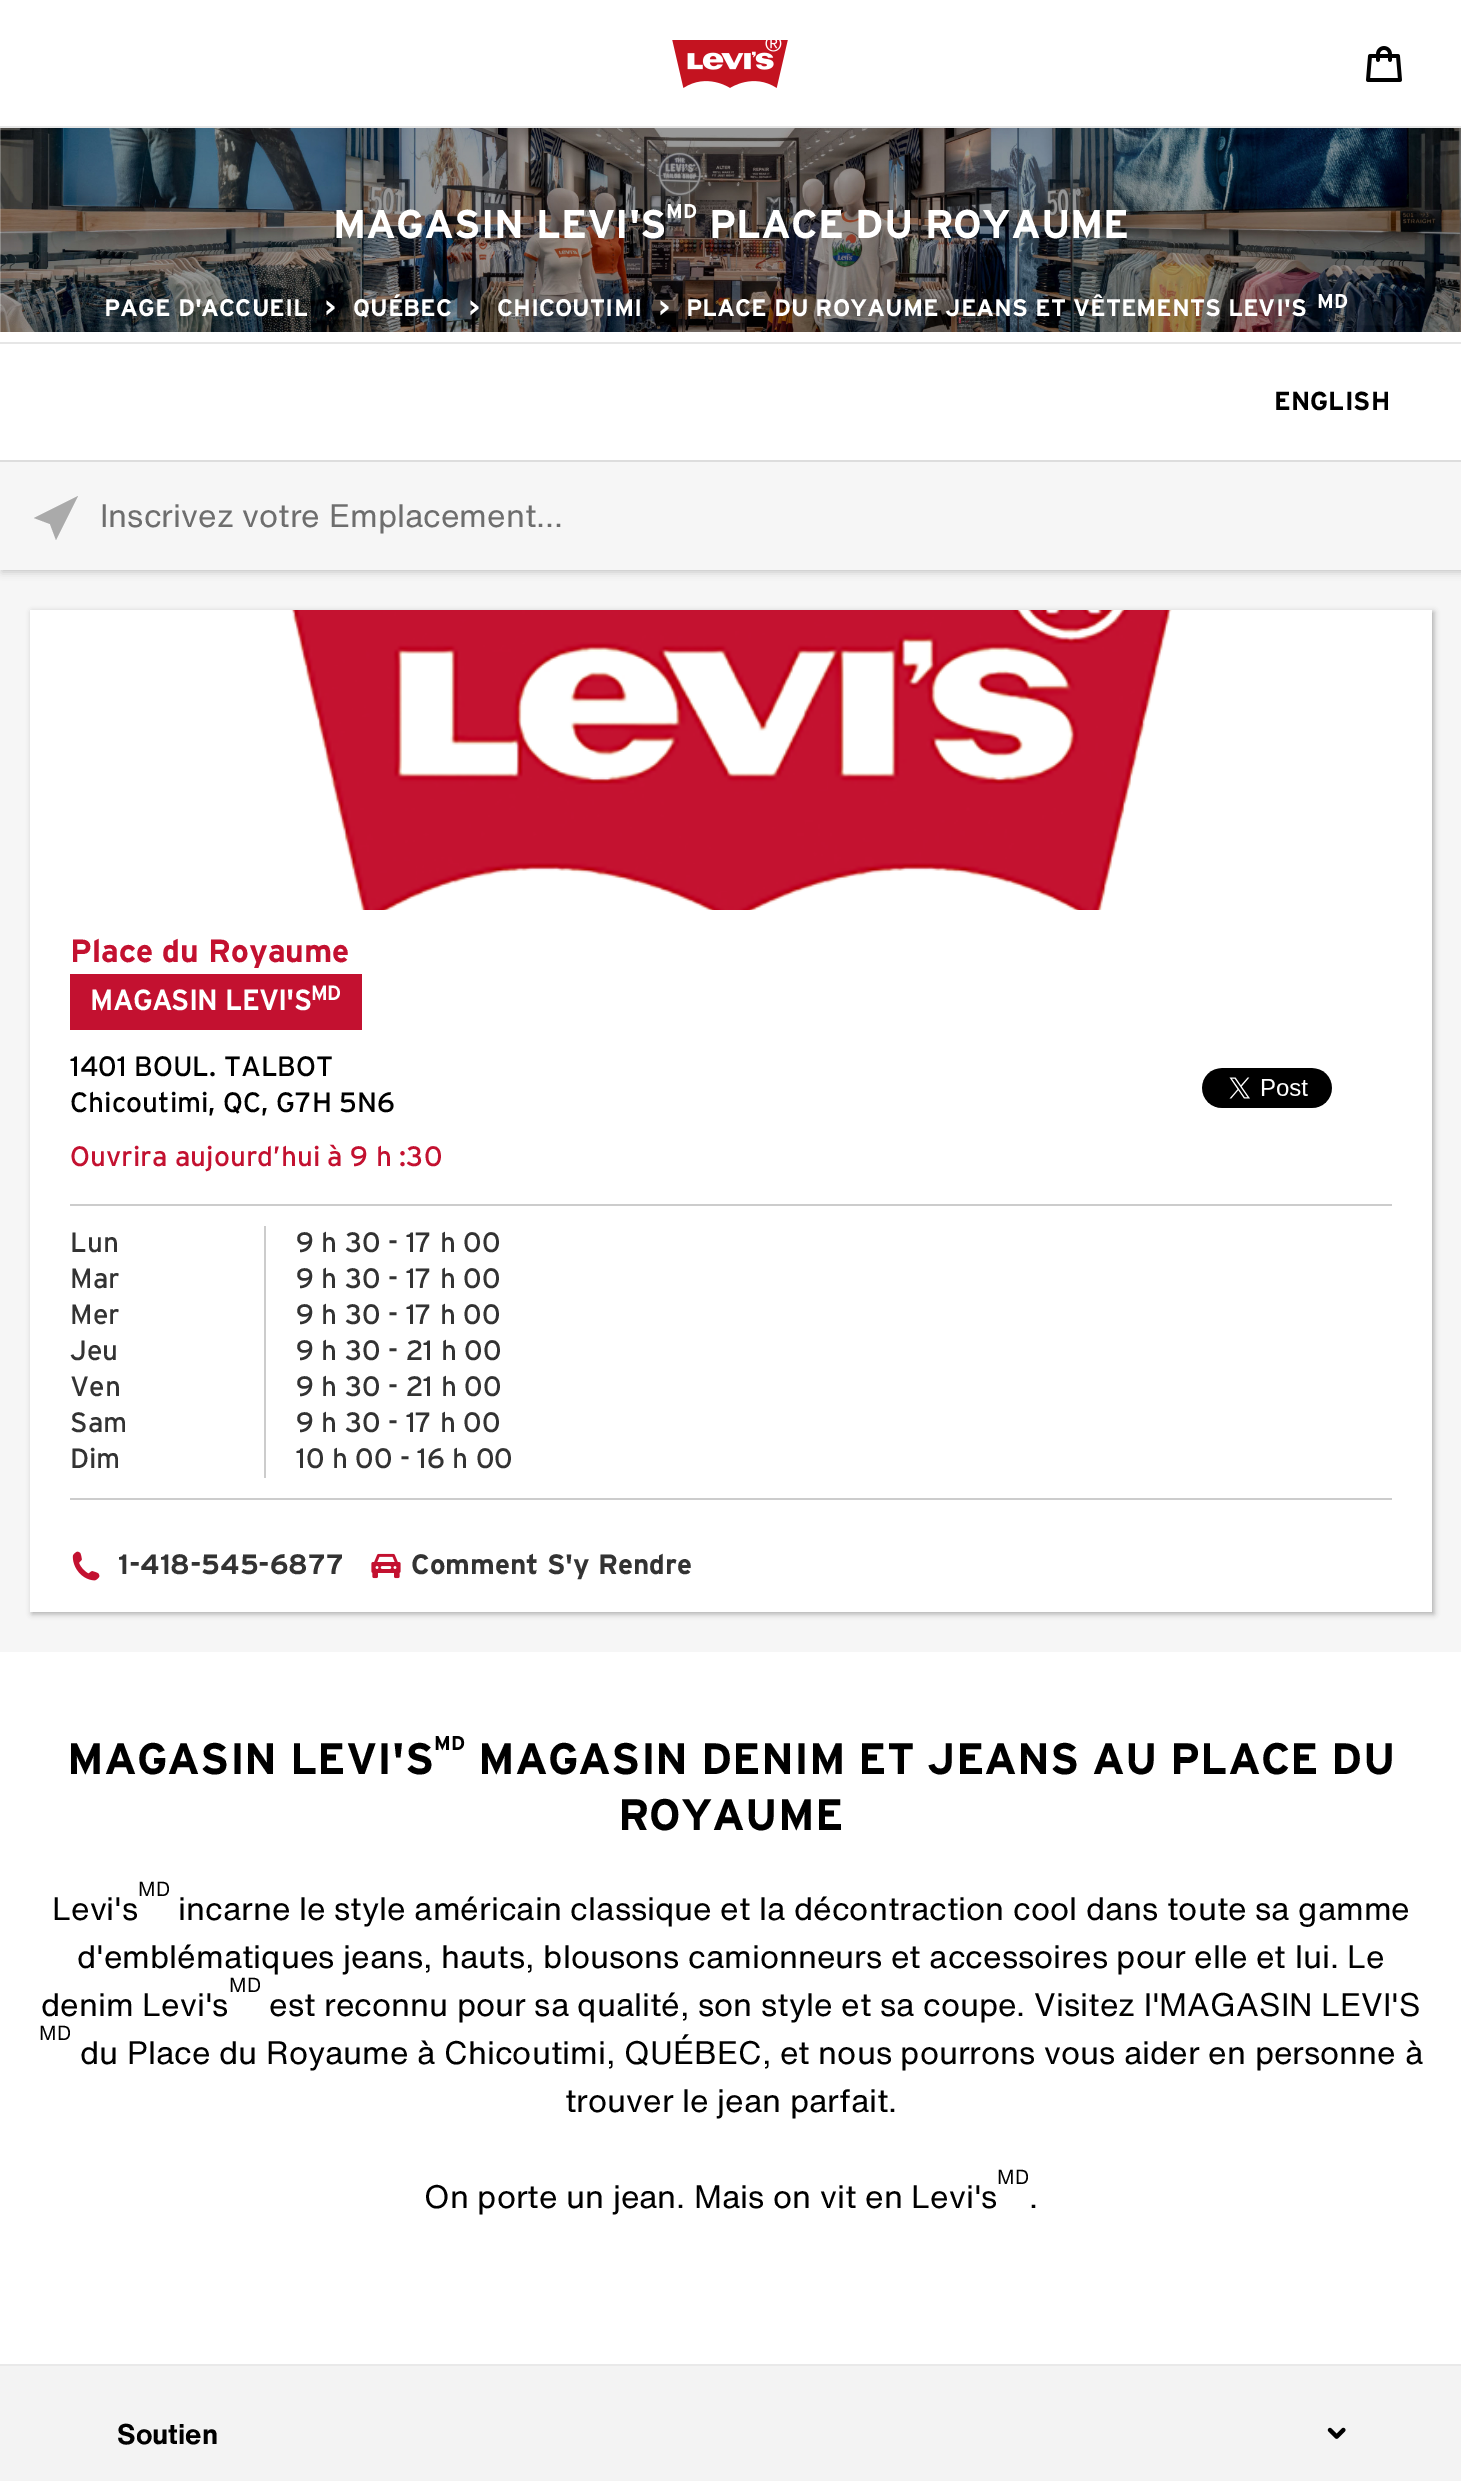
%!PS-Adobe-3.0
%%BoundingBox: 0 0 1461 2481
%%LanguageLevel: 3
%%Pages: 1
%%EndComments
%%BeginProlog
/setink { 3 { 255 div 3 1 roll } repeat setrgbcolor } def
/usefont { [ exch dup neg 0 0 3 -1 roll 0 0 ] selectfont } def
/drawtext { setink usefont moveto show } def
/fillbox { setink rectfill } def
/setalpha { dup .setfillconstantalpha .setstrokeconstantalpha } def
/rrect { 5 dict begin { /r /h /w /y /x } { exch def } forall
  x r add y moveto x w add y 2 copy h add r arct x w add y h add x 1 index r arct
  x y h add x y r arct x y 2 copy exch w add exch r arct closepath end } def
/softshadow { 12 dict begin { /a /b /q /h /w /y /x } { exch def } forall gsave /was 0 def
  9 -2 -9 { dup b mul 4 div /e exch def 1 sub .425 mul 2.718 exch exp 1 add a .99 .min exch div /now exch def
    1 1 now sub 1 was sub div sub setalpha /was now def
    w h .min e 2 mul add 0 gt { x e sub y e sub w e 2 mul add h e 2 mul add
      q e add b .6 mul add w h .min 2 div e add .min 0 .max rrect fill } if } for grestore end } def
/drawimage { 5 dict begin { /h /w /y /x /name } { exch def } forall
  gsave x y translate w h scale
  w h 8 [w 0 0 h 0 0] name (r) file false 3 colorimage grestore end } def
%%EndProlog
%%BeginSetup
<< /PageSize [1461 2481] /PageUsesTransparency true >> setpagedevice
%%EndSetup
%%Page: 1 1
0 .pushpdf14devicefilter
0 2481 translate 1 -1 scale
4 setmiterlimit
0 0 1461 2481 255 255 255 fillbox
0 126 1461 2 230 230 230 fillbox
(assets/img1.rgb) 672 40 116 48 drawimage
(assets/img2.rgb) 1366 46 36 36 drawimage
(assets/img3.rgb) 0 128 1461 204 drawimage
(MAGASIN LEVI'S) 333 238 /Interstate-Bold 40 255 255 255 drawtext
(MD) 666 218 /Interstate-Bold 20 255 255 255 drawtext
(PLACE DU ROYAUME) 709 238 /Interstate-Bold 40 255 255 255 drawtext
(PAGE D'ACCUEIL) 104 316 /Interstate-Bold 24 255 255 255 drawtext
(>) 325 316 /Interstate-Bold 24 255 255 255 drawtext
(QUÉBEC) 353 316 /Interstate-Bold 24 255 255 255 drawtext
(>) 469 316 /Interstate-Bold 24 255 255 255 drawtext
(CHICOUTIMI) 497 316 /Interstate-Bold 24 255 255 255 drawtext
(>) 659 316 /Interstate-Bold 24 255 255 255 drawtext
(PLACE DU ROYAUME JEANS ET VÊTEMENTS LEVI'S) 686 316 /Interstate-Bold 24 255 255 255 drawtext
(MD) 1317 308 /Interstate-Bold 20 255 255 255 drawtext
0 342 1461 2 230 230 230 fillbox
(ENGLISH) 1274 410 /Interstate-Bold 26 0 0 0 drawtext
0 570 1461 1082 246 246 246 fillbox
gsave
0 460 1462 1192 rectclip
0 0 0 setink
2 462 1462 110 0 4 0.2 softshadow
grestore
0 462 1461 108 246 246 246 fillbox
0 460 1461 2 221 221 221 fillbox
170 170 170 setink
78 496 moveto 34 518 lineto 50 524 lineto 56 540 lineto closepath fill
(Inscrivez votre Emplacement...) 100 527 /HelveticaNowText-Regular 32 110 110 110 drawtext
0 0 0 setink
32 612 1402 1002 0 3 0.3 softshadow
30 610 1402 1002 255 255 255 fillbox
(assets/img4.rgb) 291 610 881 300 drawimage
(Place du Royaume) 70 962 /Interstate-Bold 32 195 17 48 drawtext
70 974 292 56 195 17 48 fillbox
(MAGASIN LEVI'S) 90 1010 /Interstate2-Bold 28 255 255 255 drawtext
(MD) 311 1000 /Interstate2-Bold 20 255 255 255 drawtext
(1401 BOUL. TALBOT) 70 1076 /Interstate-Regular 28 0 0 0 drawtext
(Chicoutimi, QC, G7H 5N6) 70 1112 /Interstate-Regular 28 0 0 0 drawtext
(assets/img5.rgb) 1202 1068 130 40 drawimage
(Ouvrira aujourd’hui à 9 h :30) 70 1166 /Interstate-Regular 28 195 17 48 drawtext
70 1204 1322 2 204 204 204 fillbox
70 1498 1322 2 204 204 204 fillbox
264 1226 2 252 204 204 204 fillbox
(Lun) 70 1252 /Interstate-Regular 28 51 51 51 drawtext
(9 h 30 - 17 h 00) 296 1252 /Interstate-Regular 28 51 51 51 drawtext
(Mar) 70 1288 /Interstate-Regular 28 51 51 51 drawtext
(9 h 30 - 17 h 00) 296 1288 /Interstate-Regular 28 51 51 51 drawtext
(Mer) 70 1324 /Interstate-Regular 28 51 51 51 drawtext
(9 h 30 - 17 h 00) 296 1324 /Interstate-Regular 28 51 51 51 drawtext
(Jeu) 70 1360 /Interstate-Regular 28 51 51 51 drawtext
(9 h 30 - 21 h 00) 296 1360 /Interstate-Regular 28 51 51 51 drawtext
(Ven) 70 1396 /Interstate-Regular 28 51 51 51 drawtext
(9 h 30 - 21 h 00) 296 1396 /Interstate-Regular 28 51 51 51 drawtext
(Sam) 70 1432 /Interstate-Regular 28 51 51 51 drawtext
(9 h 30 - 17 h 00) 296 1432 /Interstate-Regular 28 51 51 51 drawtext
(Dim) 70 1468 /Interstate-Regular 28 51 51 51 drawtext
(10 h 00 - 16 h 00) 296 1468 /Interstate-Regular 28 51 51 51 drawtext
(assets/img6.rgb) 72 1551 28 30 drawimage
(1-418-545-6877) 118 1574 /Interstate-Bold 28 51 51 51 drawtext
(assets/img7.rgb) 371 1553 30 26 drawimage
(Comment S'y Rendre) 411 1574 /Interstate-Bold 28 51 51 51 drawtext
(MAGASIN LEVI'S) 67 1774 /Interstate-Bold 44 0 0 0 drawtext
(MD) 434 1750 /Interstate-Bold 20 0 0 0 drawtext
(MAGASIN DENIM ET JEANS AU PLACE DU) 478 1774 /Interstate-Bold 44 0 0 0 drawtext
(ROYAUME) 618 1830 /Interstate-Bold 44 0 0 0 drawtext
(MD) 138 1896 /HelveticaNowText-Regular 20 0 0 0 drawtext
(Levi's) 52 1920 /HelveticaNowText-Regular 32 0 0 0 drawtext
(incarne le style américain classique et la décontraction cool dans toute sa gamme) 178 1920 /HelveticaNowText-Regular 32 0 0 0 drawtext
(d'emblématiques jeans, hauts, blousons camionneurs et accessoires pour elle et lui. Le) 77 1968 /HelveticaNowText-Regular 32 0 0 0 drawtext
(MD) 229 1992 /HelveticaNowText-Regular 20 0 0 0 drawtext
(denim Levi's) 41 2016 /HelveticaNowText-Regular 32 0 0 0 drawtext
(est reconnu pour sa qualité, son style et sa coupe. Visitez l'MAGASIN LEVI'S) 269 2016 /HelveticaNowText-Regular 32 0 0 0 drawtext
(MD) 39 2040 /HelveticaNowText-Regular 20 0 0 0 drawtext
(du Place du Royaume à Chicoutimi, QUÉBEC, et nous pourrons vous aider en personne à) 80 2064 /HelveticaNowText-Regular 32 0 0 0 drawtext
(trouver le jean parfait.) 565 2112 /HelveticaNowText-Regular 32 0 0 0 drawtext
(MD) 997 2184 /HelveticaNowText-Regular 20 0 0 0 drawtext
(On porte un jean. Mais on vit en Levi's) 424 2208 /HelveticaNowText-Regular 32 0 0 0 drawtext
(.) 1029 2208 /HelveticaNowText-Regular 32 0 0 0 drawtext
0 2366 1461 115 243 243 243 fillbox
0 2364 1461 2 233 233 233 fillbox
(Soutien) 117 2444 /HelveticaNowText-Bold 28 0 0 0 drawtext
(assets/img8.rgb) 1327 2427 19 12 drawimage
.poppdf14devicefilter showpage
%%EOF
